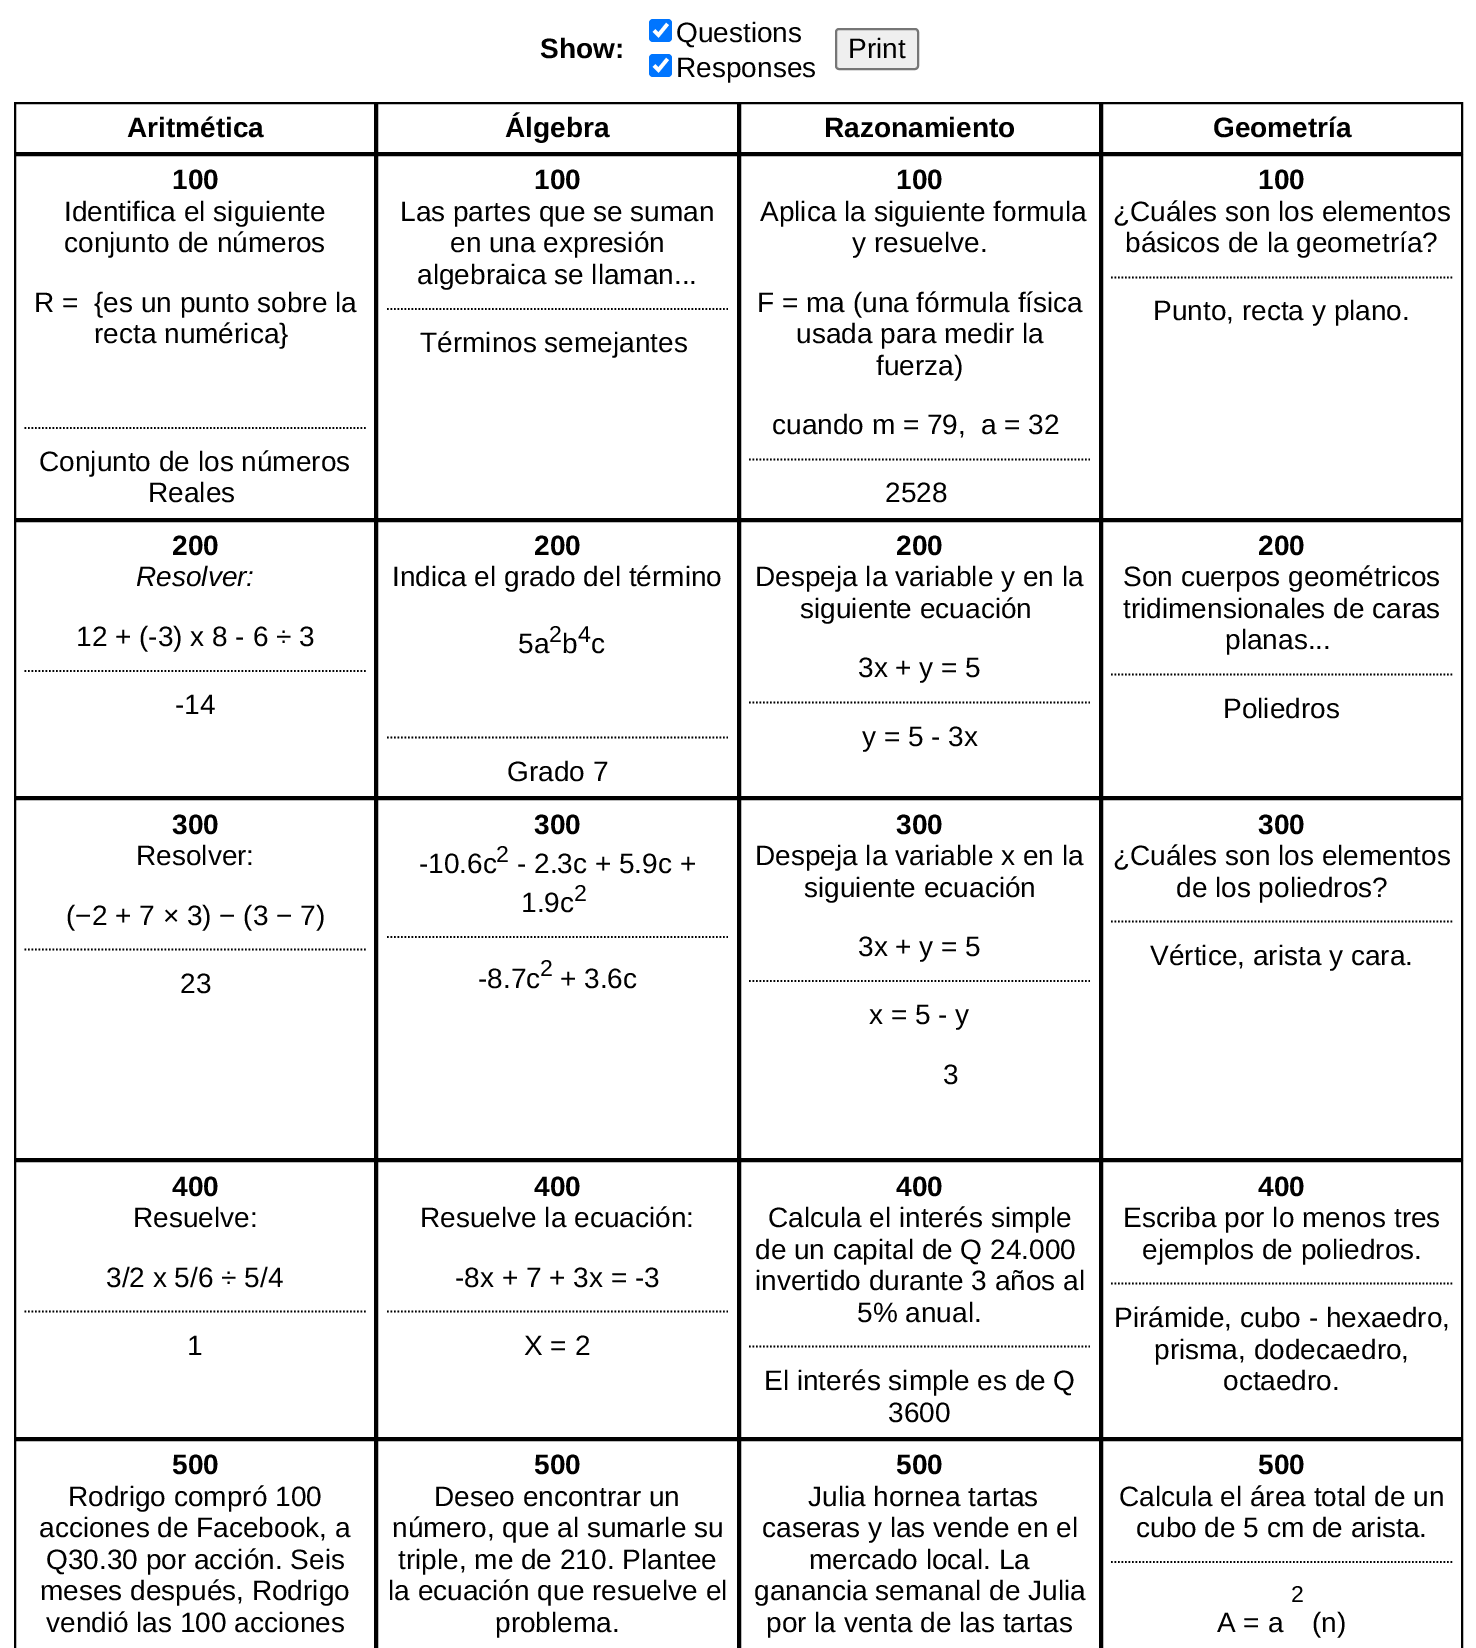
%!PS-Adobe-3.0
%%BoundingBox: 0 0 1476 1648
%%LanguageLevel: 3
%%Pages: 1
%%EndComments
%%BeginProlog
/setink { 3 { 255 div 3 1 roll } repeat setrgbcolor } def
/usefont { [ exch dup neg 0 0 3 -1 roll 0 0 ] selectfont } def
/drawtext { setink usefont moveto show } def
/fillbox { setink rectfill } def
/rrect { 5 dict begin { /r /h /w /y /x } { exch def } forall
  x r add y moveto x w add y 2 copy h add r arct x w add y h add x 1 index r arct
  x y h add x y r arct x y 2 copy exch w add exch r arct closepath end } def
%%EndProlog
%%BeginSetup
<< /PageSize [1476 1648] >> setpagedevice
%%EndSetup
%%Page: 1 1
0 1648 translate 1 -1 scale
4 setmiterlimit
0 0 1476 1648 255 255 255 fillbox
(Show:) 540 58 /LiberationSans-Bold 28 0 0 0 drawtext
0 117 255 setink
649 19 23 23 4 rrect fill
255 255 255 setink
3.6 setlinewidth
654 30.5 moveto 658.5 35 lineto 667.5 24 lineto stroke
(Questions) 676 42 /LiberationSans-Regular 28 0 0 0 drawtext
0 117 255 setink
649 54 23 23 4 rrect fill
255 255 255 setink
654 65.5 moveto 658.5 70 lineto 667.5 59 lineto stroke
(Responses) 676 77 /LiberationSans-Regular 28 0 0 0 drawtext
239 239 239 setink
836 29 82 40 3 rrect gsave fill grestore
118 118 118 setink
2 setlinewidth
stroke
(Print) 848 58 /LiberationSans-Regular 28 0 0 0 drawtext
15 103 360 50 rectstroke
(Aritmética) 127 137 /LiberationSans-Bold 28 0 0 0 drawtext
377 103 361 50 rectstroke
(Álgebra) 505 137 /LiberationSans-Bold 28 0 0 0 drawtext
740 103 360 50 rectstroke
(Razonamiento) 824 137 /LiberationSans-Bold 28 0 0 0 drawtext
1102 103 360 50 rectstroke
(Geometría) 1213 137 /LiberationSans-Bold 28 0 0 0 drawtext
15 155 360 364 rectstroke
(100) 172 189 /LiberationSans-Bold 28 0 0 0 drawtext
(Identifica el siguiente) 64 221 /LiberationSans-Regular 28 0 0 0 drawtext
(conjunto de números) 64 252 /LiberationSans-Regular 28 0 0 0 drawtext
(R =  {es un punto sobre la) 34 312 /LiberationSans-Regular 28 0 0 0 drawtext
(recta numérica}) 94 343 /LiberationSans-Regular 28 0 0 0 drawtext
1.8 setlinewidth
[1.75 1.75] 0 setdash
24.5 428 moveto 366 428 lineto stroke
(Conjunto de los números) 39 471 /LiberationSans-Regular 28 0 0 0 drawtext
(Reales) 148 502 /LiberationSans-Regular 28 0 0 0 drawtext
2 setlinewidth
[] 0 setdash
377 155 361 364 rectstroke
(100) 534 189 /LiberationSans-Bold 28 0 0 0 drawtext
(Las partes que se suman) 400 221 /LiberationSans-Regular 28 0 0 0 drawtext
(en una expresión) 450 252 /LiberationSans-Regular 28 0 0 0 drawtext
(algebraica se llaman...) 417 284 /LiberationSans-Regular 28 0 0 0 drawtext
1.8 setlinewidth
[1.75 1.75] 0 setdash
387 309 moveto 728 309 lineto stroke
(Términos semejantes) 420 352 /LiberationSans-Regular 28 0 0 0 drawtext
2 setlinewidth
[] 0 setdash
740 155 360 364 rectstroke
(100) 896 189 /LiberationSans-Bold 28 0 0 0 drawtext
(Aplica la siguiente formula) 760 221 /LiberationSans-Regular 28 0 0 0 drawtext
(y resuelve.) 852 252 /LiberationSans-Regular 28 0 0 0 drawtext
(F = ma \(una fórmula física) 757 312 /LiberationSans-Regular 28 0 0 0 drawtext
(usada para medir la) 796 343 /LiberationSans-Regular 28 0 0 0 drawtext
(fuerza\)) 876 375 /LiberationSans-Regular 28 0 0 0 drawtext
(cuando m = 79,) 772 434 /LiberationSans-Regular 28 0 0 0 drawtext
(a = 32) 981 434 /LiberationSans-Regular 28 0 0 0 drawtext
1.8 setlinewidth
[1.75 1.75] 0 setdash
749 459.5 moveto 1090 459.5 lineto stroke
(2528) 885 502 /LiberationSans-Regular 28 0 0 0 drawtext
2 setlinewidth
[] 0 setdash
1102 155 360 364 rectstroke
(100) 1258 189 /LiberationSans-Bold 28 0 0 0 drawtext
(¿Cuáles son los elementos) 1113 221 /LiberationSans-Regular 28 0 0 0 drawtext
(básicos de la geometría?) 1125 252 /LiberationSans-Regular 28 0 0 0 drawtext
1.8 setlinewidth
[1.75 1.75] 0 setdash
1111 277.5 moveto 1452.5 277.5 lineto stroke
(Punto, recta y plano.) 1153 320 /LiberationSans-Regular 28 0 0 0 drawtext
2 setlinewidth
[] 0 setdash
15 521 360 276 rectstroke
(200) 172 555 /LiberationSans-Bold 28 0 0 0 drawtext
(Resolver:) 136 586 /LiberationSans-Italic 28 0 0 0 drawtext
(12 + \(-3\) x 8 - 6 ÷ 3) 76 646 /LiberationSans-Regular 28 0 0 0 drawtext
1.8 setlinewidth
[1.75 1.75] 0 setdash
24.5 671 moveto 366 671 lineto stroke
(-14) 175 714 /LiberationSans-Regular 28 0 0 0 drawtext
2 setlinewidth
[] 0 setdash
377 521 361 276 rectstroke
(200) 534 555 /LiberationSans-Bold 28 0 0 0 drawtext
(Indica el grado del término) 392 586 /LiberationSans-Regular 28 0 0 0 drawtext
(5a) 518 653 /LiberationSans-Regular 28 0 0 0 drawtext
(2) 549 642 /LiberationSans-Regular 23 0 0 0 drawtext
(b) 562 653 /LiberationSans-Regular 28 0 0 0 drawtext
(4) 578 642 /LiberationSans-Regular 23 0 0 0 drawtext
(c) 591 653 /LiberationSans-Regular 28 0 0 0 drawtext
1.8 setlinewidth
[1.75 1.75] 0 setdash
387 737.5 moveto 728 737.5 lineto stroke
(Grado 7) 507 781 /LiberationSans-Regular 28 0 0 0 drawtext
2 setlinewidth
[] 0 setdash
740 521 360 276 rectstroke
(200) 896 555 /LiberationSans-Bold 28 0 0 0 drawtext
(Despeja la variable y en la) 755 586 /LiberationSans-Regular 28 0 0 0 drawtext
(siguiente ecuación) 800 618 /LiberationSans-Regular 28 0 0 0 drawtext
(3x + y = 5) 858 677 /LiberationSans-Regular 28 0 0 0 drawtext
1.8 setlinewidth
[1.75 1.75] 0 setdash
749 702.5 moveto 1090 702.5 lineto stroke
(y = 5 - 3x) 862 746 /LiberationSans-Regular 28 0 0 0 drawtext
2 setlinewidth
[] 0 setdash
1102 521 360 276 rectstroke
(200) 1258 555 /LiberationSans-Bold 28 0 0 0 drawtext
(Son cuerpos geométricos) 1123 586 /LiberationSans-Regular 28 0 0 0 drawtext
(tridimensionales de caras) 1123 618 /LiberationSans-Regular 28 0 0 0 drawtext
(planas...) 1225 649 /LiberationSans-Regular 28 0 0 0 drawtext
1.8 setlinewidth
[1.75 1.75] 0 setdash
1111 674.5 moveto 1452.5 674.5 lineto stroke
(Poliedros) 1223 718 /LiberationSans-Regular 28 0 0 0 drawtext
2 setlinewidth
[] 0 setdash
15 799 360 360 rectstroke
(300) 172 834 /LiberationSans-Bold 28 0 0 0 drawtext
(Resolver:) 136 865 /LiberationSans-Regular 28 0 0 0 drawtext
(\(−2 + 7 × 3\) − \(3 − 7\)) 66 925 /LiberationSans-Regular 28 0 0 0 drawtext
1.8 setlinewidth
[1.75 1.75] 0 setdash
24.5 949.5 moveto 366 949.5 lineto stroke
(23) 180 993 /LiberationSans-Regular 28 0 0 0 drawtext
2 setlinewidth
[] 0 setdash
377 799 361 360 rectstroke
(300) 534 834 /LiberationSans-Bold 28 0 0 0 drawtext
(-10.6c) 419 873 /LiberationSans-Regular 28 0 0 0 drawtext
(2) 496 862 /LiberationSans-Regular 23 0 0 0 drawtext
(- 2.3c + 5.9c +) 517 873 /LiberationSans-Regular 28 0 0 0 drawtext
(1.9c) 521 912 /LiberationSans-Regular 28 0 0 0 drawtext
(2) 574 901 /LiberationSans-Regular 23 0 0 0 drawtext
1.8 setlinewidth
[1.75 1.75] 0 setdash
387 937 moveto 728 937 lineto stroke
(-8.7c) 478 988 /LiberationSans-Regular 28 0 0 0 drawtext
(2) 540 976 /LiberationSans-Regular 23 0 0 0 drawtext
(+ 3.6c) 560 988 /LiberationSans-Regular 28 0 0 0 drawtext
2 setlinewidth
[] 0 setdash
740 799 360 360 rectstroke
(300) 896 834 /LiberationSans-Bold 28 0 0 0 drawtext
(Despeja la variable x en la) 755 865 /LiberationSans-Regular 28 0 0 0 drawtext
(siguiente ecuación) 804 897 /LiberationSans-Regular 28 0 0 0 drawtext
(3x + y = 5) 858 956 /LiberationSans-Regular 28 0 0 0 drawtext
1.8 setlinewidth
[1.75 1.75] 0 setdash
749 981 moveto 1090 981 lineto stroke
(x = 5 - y) 869 1024 /LiberationSans-Regular 28 0 0 0 drawtext
(3) 943 1084 /LiberationSans-Regular 28 0 0 0 drawtext
2 setlinewidth
[] 0 setdash
1102 799 360 360 rectstroke
(300) 1258 834 /LiberationSans-Bold 28 0 0 0 drawtext
(¿Cuáles son los elementos) 1113 865 /LiberationSans-Regular 28 0 0 0 drawtext
(de los poliedros?) 1176 897 /LiberationSans-Regular 28 0 0 0 drawtext
1.8 setlinewidth
[1.75 1.75] 0 setdash
1111 921.5 moveto 1452.5 921.5 lineto stroke
(Vértice, arista y cara.) 1150 965 /LiberationSans-Regular 28 0 0 0 drawtext
2 setlinewidth
[] 0 setdash
15 1161 360 277 rectstroke
(400) 172 1196 /LiberationSans-Bold 28 0 0 0 drawtext
(Resuelve:) 133 1227 /LiberationSans-Regular 28 0 0 0 drawtext
(3/2 x 5/6 ÷ 5/4) 106 1287 /LiberationSans-Regular 28 0 0 0 drawtext
1.8 setlinewidth
[1.75 1.75] 0 setdash
24.5 1311.5 moveto 366 1311.5 lineto stroke
(1) 187 1355 /LiberationSans-Regular 28 0 0 0 drawtext
2 setlinewidth
[] 0 setdash
377 1161 361 277 rectstroke
(400) 534 1196 /LiberationSans-Bold 28 0 0 0 drawtext
(Resuelve la ecuación:) 420 1227 /LiberationSans-Regular 28 0 0 0 drawtext
(-8x + 7 + 3x = -3) 455 1287 /LiberationSans-Regular 28 0 0 0 drawtext
1.8 setlinewidth
[1.75 1.75] 0 setdash
387 1311.5 moveto 728 1311.5 lineto stroke
(X = 2) 524 1355 /LiberationSans-Regular 28 0 0 0 drawtext
2 setlinewidth
[] 0 setdash
740 1161 360 277 rectstroke
(400) 896 1196 /LiberationSans-Bold 28 0 0 0 drawtext
(Calcula el interés simple) 768 1227 /LiberationSans-Regular 28 0 0 0 drawtext
(de un capital de Q 24.000) 755 1259 /LiberationSans-Regular 28 0 0 0 drawtext
(invertido durante 3 años al) 755 1290 /LiberationSans-Regular 28 0 0 0 drawtext
(5% anual.) 857 1322 /LiberationSans-Regular 28 0 0 0 drawtext
1.8 setlinewidth
[1.75 1.75] 0 setdash
749 1346.5 moveto 1090 1346.5 lineto stroke
(El interés simple es de Q) 764 1390 /LiberationSans-Regular 28 0 0 0 drawtext
(3600) 888 1422 /LiberationSans-Regular 28 0 0 0 drawtext
2 setlinewidth
[] 0 setdash
1102 1161 360 277 rectstroke
(400) 1258 1196 /LiberationSans-Bold 28 0 0 0 drawtext
(Escriba por lo menos tres) 1123 1227 /LiberationSans-Regular 28 0 0 0 drawtext
(ejemplos de poliedros.) 1142 1259 /LiberationSans-Regular 28 0 0 0 drawtext
1.8 setlinewidth
[1.75 1.75] 0 setdash
1111 1283.5 moveto 1452.5 1283.5 lineto stroke
(Pirámide, cubo - hexaedro,) 1114 1327 /LiberationSans-Regular 28 0 0 0 drawtext
(prisma, dodecaedro,) 1154 1359 /LiberationSans-Regular 28 0 0 0 drawtext
(octaedro.) 1223 1390 /LiberationSans-Regular 28 0 0 0 drawtext
2 setlinewidth
[] 0 setdash
15 1440 360 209 rectstroke
(500) 172 1474 /LiberationSans-Bold 28 0 0 0 drawtext
(Rodrigo compró 100) 68 1506 /LiberationSans-Regular 28 0 0 0 drawtext
(acciones de Facebook, a) 39 1537 /LiberationSans-Regular 28 0 0 0 drawtext
(Q30.30 por acción. Seis) 46 1569 /LiberationSans-Regular 28 0 0 0 drawtext
(meses después, Rodrigo) 40 1600 /LiberationSans-Regular 28 0 0 0 drawtext
(vendió las 100 acciones) 46 1632 /LiberationSans-Regular 28 0 0 0 drawtext
377 1440 361 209 rectstroke
(500) 534 1474 /LiberationSans-Bold 28 0 0 0 drawtext
(Deseo encontrar un) 434 1506 /LiberationSans-Regular 28 0 0 0 drawtext
(número, que al sumarle su) 392 1537 /LiberationSans-Regular 28 0 0 0 drawtext
(triple, me de 210. Plantee) 398 1569 /LiberationSans-Regular 28 0 0 0 drawtext
(la ecuación que resuelve el) 388 1600 /LiberationSans-Regular 28 0 0 0 drawtext
(problema.) 495 1632 /LiberationSans-Regular 28 0 0 0 drawtext
740 1440 360 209 rectstroke
(500) 896 1474 /LiberationSans-Bold 28 0 0 0 drawtext
(Julia hornea tartas) 808 1506 /LiberationSans-Regular 28 0 0 0 drawtext
(caseras y las vende en el) 762 1537 /LiberationSans-Regular 28 0 0 0 drawtext
(mercado local. La) 809 1569 /LiberationSans-Regular 28 0 0 0 drawtext
(ganancia semanal de Julia) 754 1600 /LiberationSans-Regular 28 0 0 0 drawtext
(por la venta de las tartas) 766 1632 /LiberationSans-Regular 28 0 0 0 drawtext
1102 1440 360 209 rectstroke
(500) 1258 1474 /LiberationSans-Bold 28 0 0 0 drawtext
(Calcula el área total de un) 1119 1506 /LiberationSans-Regular 28 0 0 0 drawtext
(cubo de 5 cm de arista.) 1136 1537 /LiberationSans-Regular 28 0 0 0 drawtext
1.8 setlinewidth
[1.75 1.75] 0 setdash
1111 1562 moveto 1452.5 1562 lineto stroke
(2) 1291 1602 /LiberationSans-Regular 23 0 0 0 drawtext
(A = a) 1217 1632 /LiberationSans-Regular 28 0 0 0 drawtext
(\(n\)) 1312 1632 /LiberationSans-Regular 28 0 0 0 drawtext
showpage
%%EOF
